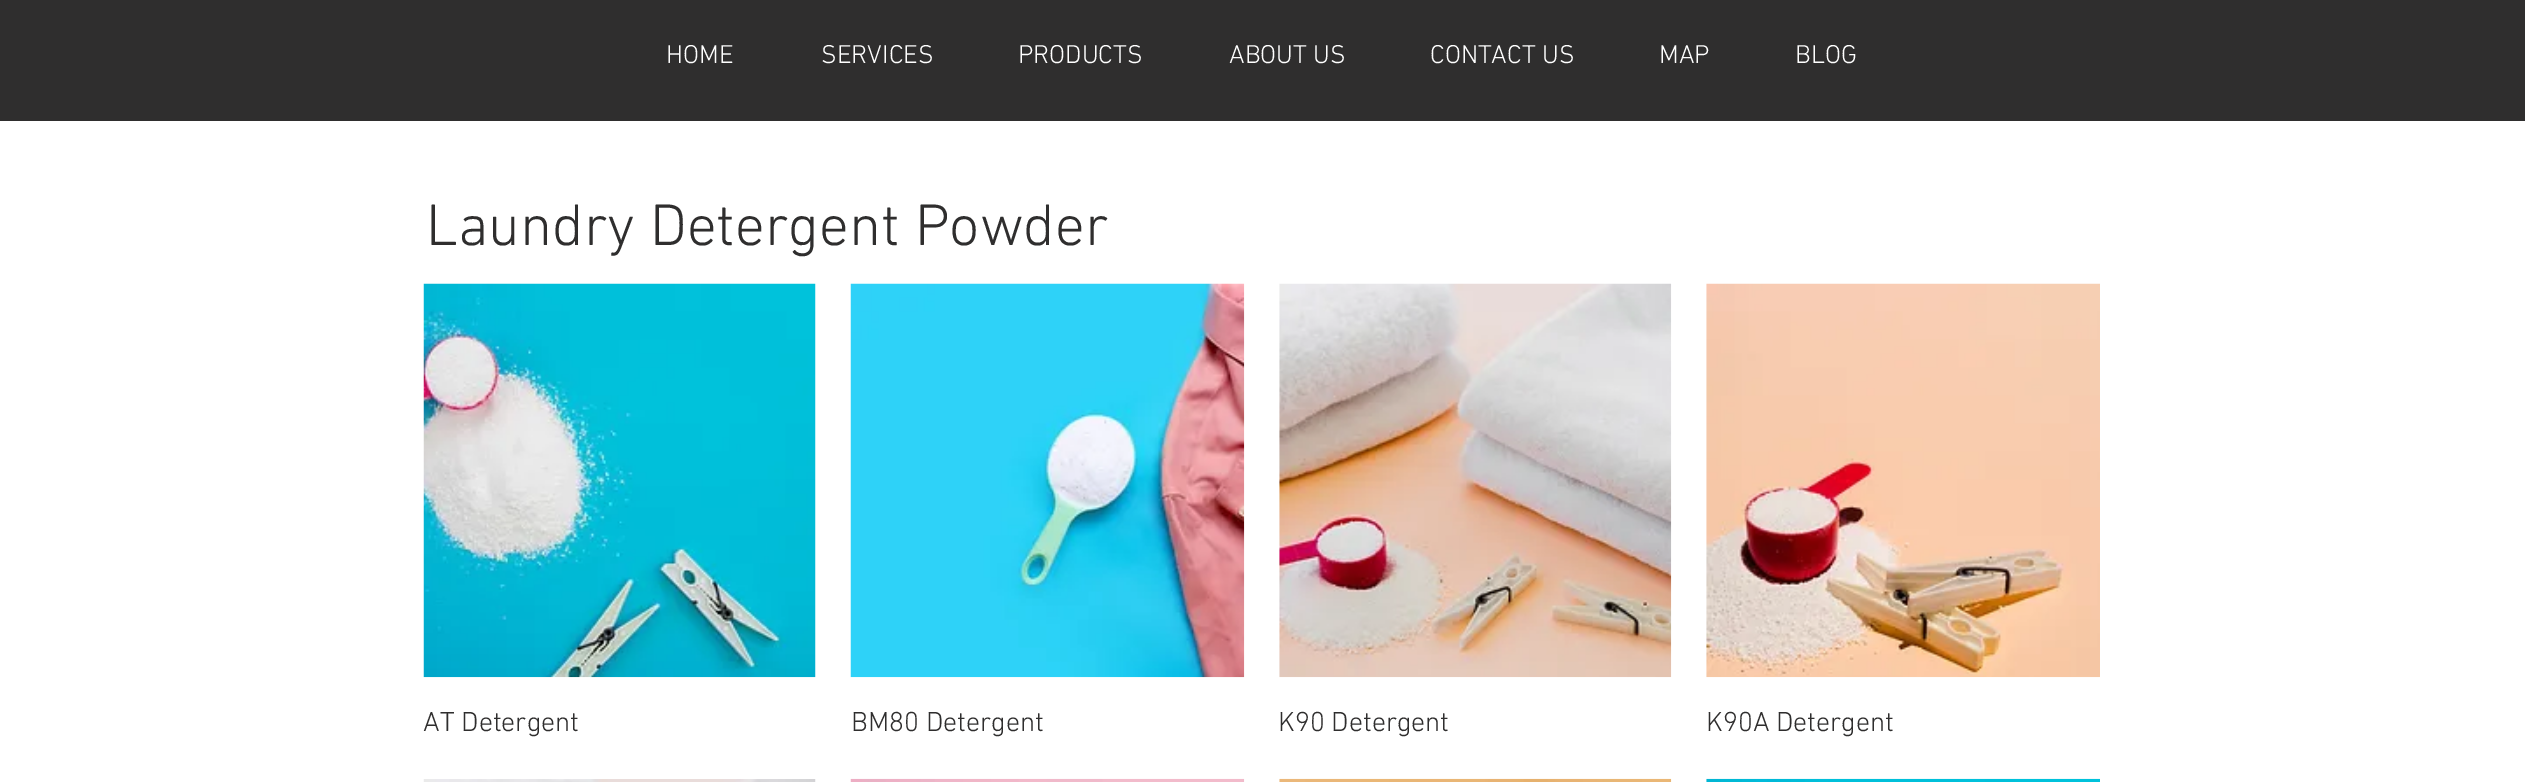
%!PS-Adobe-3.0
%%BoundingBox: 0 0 2525 782
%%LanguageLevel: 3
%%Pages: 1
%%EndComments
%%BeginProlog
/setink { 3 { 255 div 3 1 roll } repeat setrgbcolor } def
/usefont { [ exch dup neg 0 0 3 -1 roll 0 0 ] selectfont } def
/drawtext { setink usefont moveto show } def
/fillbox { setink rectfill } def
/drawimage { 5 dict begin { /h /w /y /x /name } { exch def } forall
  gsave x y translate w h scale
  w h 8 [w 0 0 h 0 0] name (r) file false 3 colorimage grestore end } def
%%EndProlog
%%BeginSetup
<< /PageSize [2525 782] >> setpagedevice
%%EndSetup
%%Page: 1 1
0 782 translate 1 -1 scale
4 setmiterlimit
0 0 2525 782 255 255 255 fillbox
0 0 2525 121 47 46 46 fillbox
(HOME) 666 63 /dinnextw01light-Light 26.25 255 255 255 drawtext
(SERVICES) 821 63 /dinnextw01light-Light 26.25 255 255 255 drawtext
(PRODUCTS) 1018 63 /dinnextw01light-Light 26.25 255 255 255 drawtext
(ABOUT US) 1229 63 /dinnextw01light-Light 26.25 255 255 255 drawtext
(CONTACT US) 1430 63 /dinnextw01light-Light 26.25 255 255 255 drawtext
(MAP) 1659 63 /dinnextw01light-Light 26.25 255 255 255 drawtext
(BLOG) 1795 63 /dinnextw01light-Light 26.25 255 255 255 drawtext
(Laundry Detergent Powder) 426 245 /dinnextw01light-Light 59.5 47 46 46 drawtext
(assets/img1.rgb) 423 283 393 395 drawimage
(AT Detergent) 423 731 /dinnextw01light-Light 28 47 46 46 drawtext
(assets/img2.rgb) 850 283 395 395 drawimage
(BM80 Detergent) 851 731 /dinnextw01light-Light 28 47 46 46 drawtext
(assets/img3.rgb) 1279 283 393 395 drawimage
(K90 Detergent) 1278 731 /dinnextw01light-Light 28 47 46 46 drawtext
(assets/img4.rgb) 1706 283 394 395 drawimage
(K90A Detergent) 1706 731 /dinnextw01light-Light 28 47 46 46 drawtext
(assets/img5.rgb) 423 779 393 3 drawimage
(assets/img6.rgb) 850 778 395 4 drawimage
(assets/img7.rgb) 1279 778 393 4 drawimage
(assets/img8.rgb) 1706 778 394 4 drawimage
showpage
%%EOF
